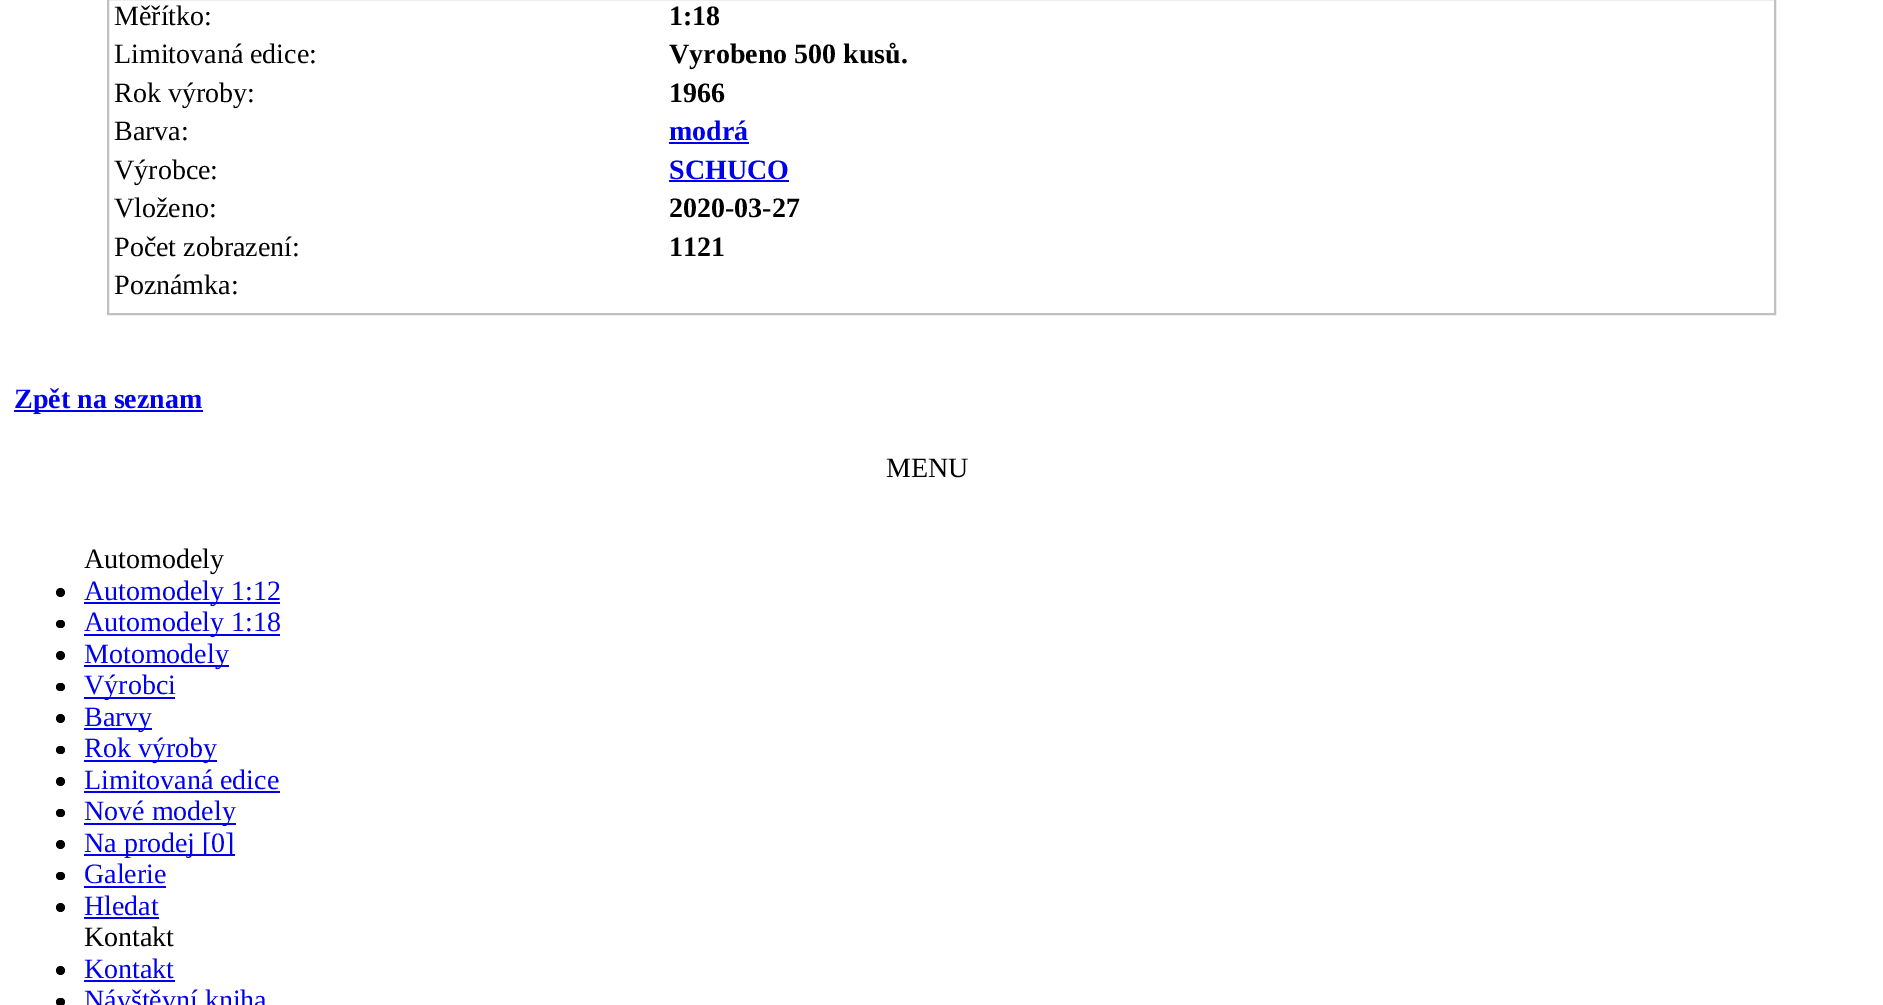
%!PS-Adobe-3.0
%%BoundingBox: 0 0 1883 1005
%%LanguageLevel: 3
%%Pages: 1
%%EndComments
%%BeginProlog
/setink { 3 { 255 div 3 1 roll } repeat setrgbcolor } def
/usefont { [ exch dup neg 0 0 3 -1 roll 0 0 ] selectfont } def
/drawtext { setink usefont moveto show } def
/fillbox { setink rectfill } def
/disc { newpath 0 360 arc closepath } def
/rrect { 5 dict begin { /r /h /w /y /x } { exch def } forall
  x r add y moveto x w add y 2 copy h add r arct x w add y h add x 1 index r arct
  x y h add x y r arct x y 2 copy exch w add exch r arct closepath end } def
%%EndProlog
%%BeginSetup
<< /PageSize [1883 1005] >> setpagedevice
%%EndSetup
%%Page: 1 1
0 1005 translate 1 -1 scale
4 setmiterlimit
0 0 1883 1005 255 255 255 fillbox
192 192 192 setink
2 setlinewidth
108 -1 1667 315 rectstroke
(Měřítko:) 114 25 /LiberationSerif-Regular 28 0 0 0 drawtext
(1:18) 669 25 /LiberationSerif-Bold 28 0 0 0 drawtext
(Limitovaná edice:) 114 63 /LiberationSerif-Regular 28 0 0 0 drawtext
(Vyrobeno 500 kusů.) 669 63 /LiberationSerif-Bold 28 0 0 0 drawtext
(Rok výroby:) 114 102 /LiberationSerif-Regular 28 0 0 0 drawtext
(1966) 669 102 /LiberationSerif-Bold 28 0 0 0 drawtext
(Barva:) 114 140 /LiberationSerif-Regular 28 0 0 0 drawtext
(modrá) 669 140 /LiberationSerif-Bold 28 0 0 238 drawtext
669 142 80 2 0 0 238 fillbox
(Výrobce:) 114 179 /LiberationSerif-Regular 28 0 0 0 drawtext
(SCHUCO) 669 179 /LiberationSerif-Bold 28 0 0 238 drawtext
669 180 120 2 0 0 238 fillbox
(Vloženo:) 114 217 /LiberationSerif-Regular 28 0 0 0 drawtext
(2020-03-27) 669 217 /LiberationSerif-Bold 28 0 0 0 drawtext
(Počet zobrazení:) 114 256 /LiberationSerif-Regular 28 0 0 0 drawtext
(1121) 669 256 /LiberationSerif-Bold 28 0 0 0 drawtext
(Poznámka:) 114 294 /LiberationSerif-Regular 28 0 0 0 drawtext
14 410 189 2 0 0 238 fillbox
(Zpět na seznam) 14 408 /LiberationSerif-Bold 28 0 0 238 drawtext
(MENU) 886 477 /LiberationSerif-Regular 28 0 0 0 drawtext
(Automodely) 84 568 /LiberationSerif-Regular 28 0 0 0 drawtext
60.5 592.5 4.5 disc fill
84 602 196 2 0 0 238 fillbox
(Automodely 1:12) 84 600 /LiberationSerif-Regular 28 0 0 238 drawtext
0 0 0 setink
56 620 9 8 4 rrect fill
84 634 196 2 0 0 238 fillbox
(Automodely 1:18) 84 631 /LiberationSerif-Regular 28 0 0 238 drawtext
0 0 0 setink
60.5 655.5 4.5 disc fill
84 665 145 2 0 0 238 fillbox
(Motomodely) 84 663 /LiberationSerif-Regular 28 0 0 238 drawtext
0 0 0 setink
56 683 9 8 4 rrect fill
84 697 91 2 0 0 238 fillbox
(Výrobci) 84 694 /LiberationSerif-Regular 28 0 0 238 drawtext
0 0 0 setink
60.5 718.5 4.5 disc fill
84 728 68 2 0 0 238 fillbox
(Barvy) 84 726 /LiberationSerif-Regular 28 0 0 238 drawtext
0 0 0 setink
56 746 9 8 4 rrect fill
84 760 133 2 0 0 238 fillbox
(Rok výroby) 84 757 /LiberationSerif-Regular 28 0 0 238 drawtext
0 0 0 setink
60.5 781.5 4.5 disc fill
(Limitovaná edice) 84 789 /LiberationSerif-Regular 28 0 0 238 drawtext
84 791 196 2 0 0 238 fillbox
0 0 0 setink
56 809 9 8 4 rrect fill
84 823 152 2 0 0 238 fillbox
(Nové modely) 84 820 /LiberationSerif-Regular 28 0 0 238 drawtext
0 0 0 setink
60.5 844.5 4.5 disc fill
84 854 151 2 0 0 238 fillbox
(Na prodej [0]) 84 852 /LiberationSerif-Regular 28 0 0 238 drawtext
0 0 0 setink
56 872 9 8 4 rrect fill
(Galerie) 84 883 /LiberationSerif-Regular 28 0 0 238 drawtext
84 886 82 2 0 0 238 fillbox
0 0 0 setink
60.5 907.5 4.5 disc fill
(Hledat) 84 915 /LiberationSerif-Regular 28 0 0 238 drawtext
84 917 75 2 0 0 238 fillbox
(Kontakt) 84 946 /LiberationSerif-Regular 28 0 0 0 drawtext
60.5 970.5 4.5 disc fill
(Kontakt) 84 978 /LiberationSerif-Regular 28 0 0 238 drawtext
84 980 91 2 0 0 238 fillbox
0 0 0 setink
56 998 9 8 4 rrect fill
(Návštěvní kniha) 84 1009 /LiberationSerif-Regular 28 0 0 238 drawtext
showpage
%%EOF
